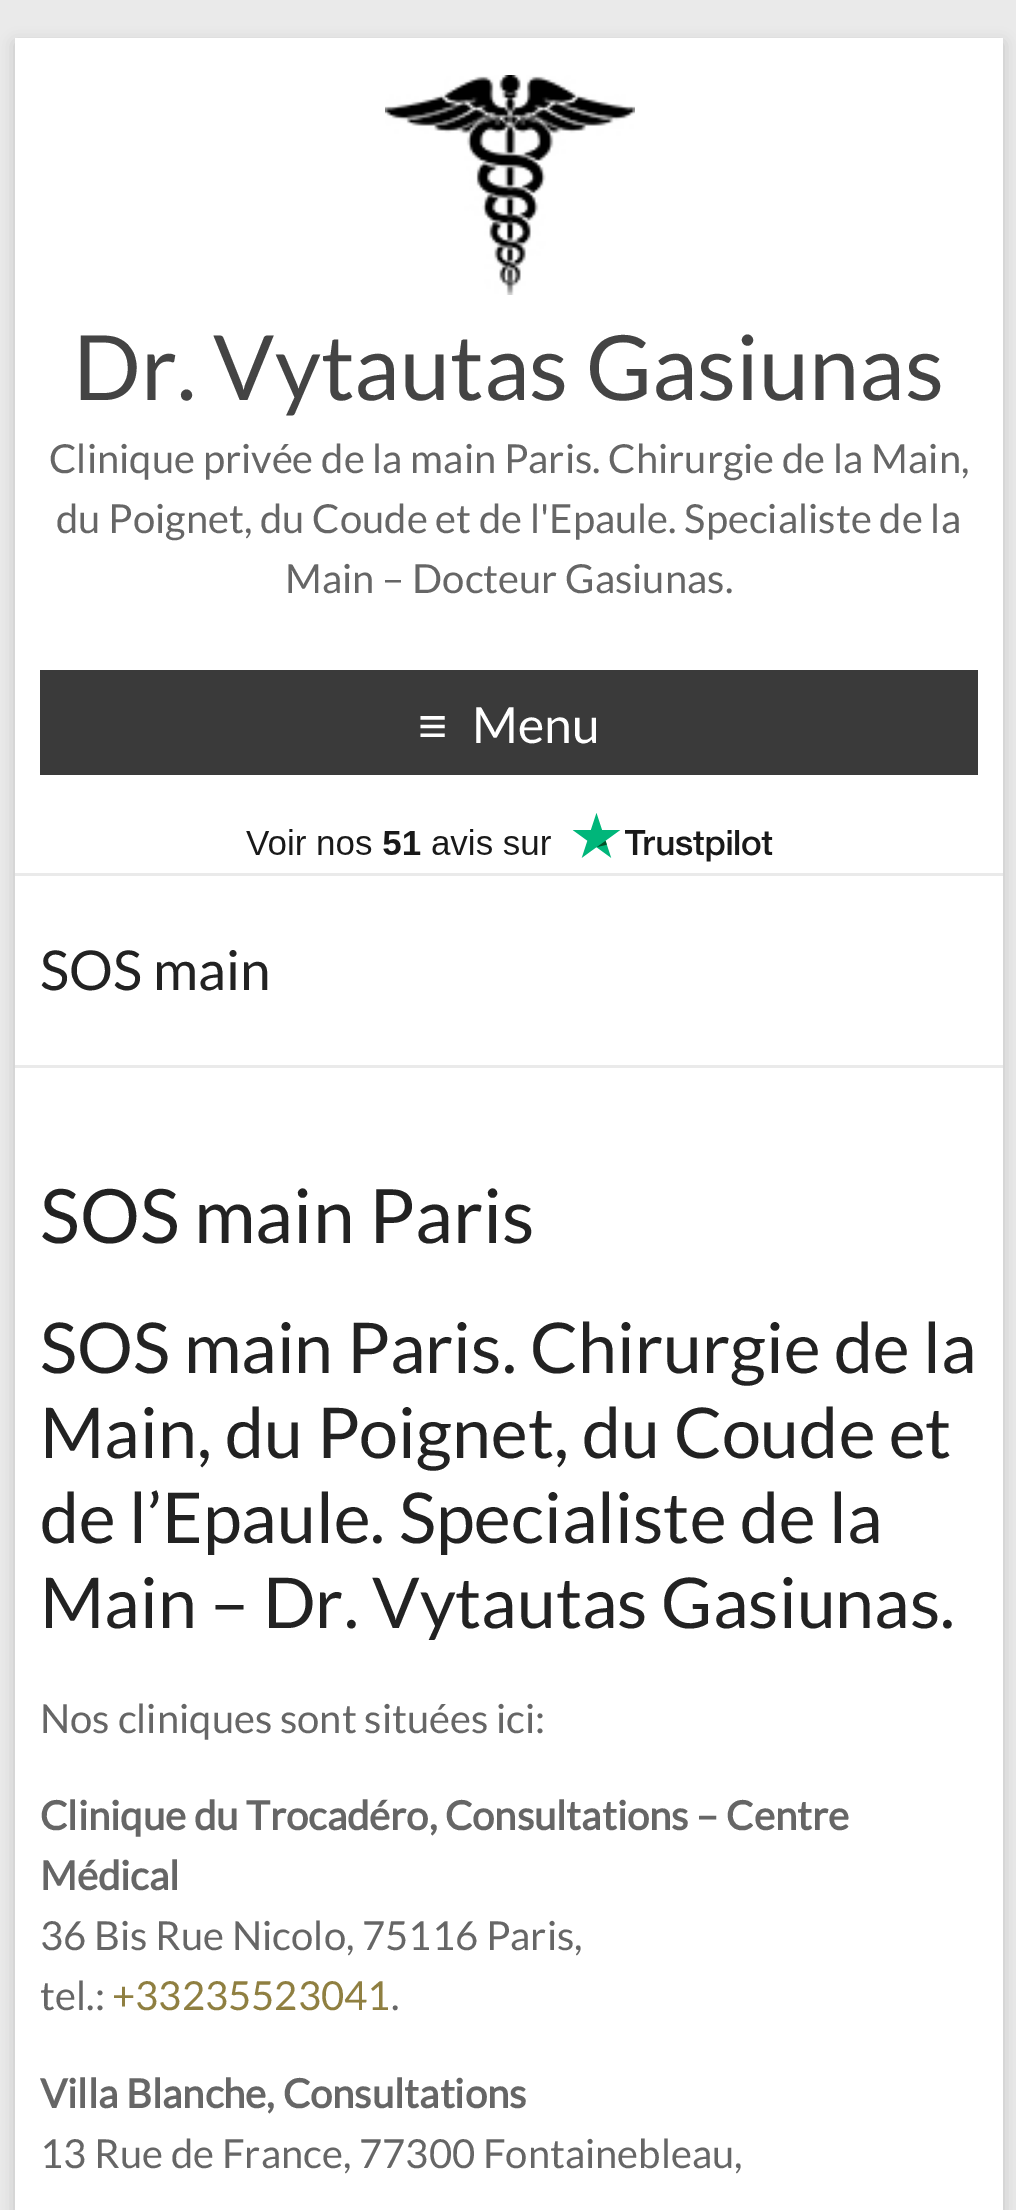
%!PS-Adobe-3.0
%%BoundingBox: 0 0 1016 2210
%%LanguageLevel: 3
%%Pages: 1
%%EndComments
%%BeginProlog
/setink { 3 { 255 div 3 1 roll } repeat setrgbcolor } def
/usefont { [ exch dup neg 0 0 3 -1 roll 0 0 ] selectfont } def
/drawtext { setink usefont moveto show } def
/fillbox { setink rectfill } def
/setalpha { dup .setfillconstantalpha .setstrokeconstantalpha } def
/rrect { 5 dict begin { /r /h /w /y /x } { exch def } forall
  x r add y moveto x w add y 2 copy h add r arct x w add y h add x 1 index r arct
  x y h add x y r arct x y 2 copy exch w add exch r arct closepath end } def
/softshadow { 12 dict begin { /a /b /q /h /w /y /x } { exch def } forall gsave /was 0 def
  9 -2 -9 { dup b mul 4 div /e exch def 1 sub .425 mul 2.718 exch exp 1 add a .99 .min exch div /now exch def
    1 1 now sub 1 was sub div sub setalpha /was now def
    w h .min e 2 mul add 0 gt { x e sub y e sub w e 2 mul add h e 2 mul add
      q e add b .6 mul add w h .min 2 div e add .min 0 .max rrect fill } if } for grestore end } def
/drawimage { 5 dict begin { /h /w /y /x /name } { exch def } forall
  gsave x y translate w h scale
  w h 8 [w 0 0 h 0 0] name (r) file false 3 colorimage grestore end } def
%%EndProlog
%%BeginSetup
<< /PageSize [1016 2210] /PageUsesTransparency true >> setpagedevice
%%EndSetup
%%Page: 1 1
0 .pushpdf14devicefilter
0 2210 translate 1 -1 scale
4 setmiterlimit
0 0 1016 2210 234 234 234 fillbox
100 100 100 setink
15 43 988 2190 0 7.5 0.3 softshadow
15 38 988 2172 255 255 255 fillbox
15 873 988 3 234 234 234 fillbox
(assets/img1.rgb) 385 75 250 220 drawimage
(Dr. Vytautas Gasiunas) 73 400 /Lato-Regular 90 68 68 68 drawtext
(Clinique privée de la main Paris. Chirurgie de la Main,) 49 473 /Lato-Regular 40 102 102 102 drawtext
(du Poignet, du Coude et de l'Epaule. Specialiste de la) 56 533 /Lato-Regular 40 102 102 102 drawtext
(Main – Docteur Gasiunas.) 285 593 /Lato-Regular 40 102 102 102 drawtext
40 670 938 105 58 58 58 fillbox
(≡) 418 743 /LiberationSans-Regular 50 255 255 255 drawtext
(Menu) 472 743 /Lato-Regular 50 255 255 255 drawtext
(assets/img2.rgb) 246 813 527 49 drawimage
15 1065 988 3 234 234 234 fillbox
(SOS main) 40 990 /Lato-Regular 55 34 34 34 drawtext
(SOS main Paris) 40 1243 /Lato-Regular 75 34 34 34 drawtext
(SOS main Paris. Chirurgie de la) 40 1373 /Lato-Regular 70 34 34 34 drawtext
(Main, du Poignet, du Coude et) 40 1458 /Lato-Regular 70 34 34 34 drawtext
(de l’Epaule. Specialiste de la) 40 1543 /Lato-Regular 70 34 34 34 drawtext
(Main – Dr. Vytautas Gasiunas.) 40 1628 /Lato-Regular 70 34 34 34 drawtext
(Nos cliniques sont situées ici:) 40 1733 /Lato-Regular 40 102 102 102 drawtext
(Clinique du Trocadéro, Consultations – Centre) 40 1830 /Lato-Bold 40 102 102 102 drawtext
(Médical) 40 1890 /Lato-Bold 40 102 102 102 drawtext
(36 Bis Rue Nicolo, 75116 Paris,) 40 1950 /Lato-Regular 40 102 102 102 drawtext
(tel.:) 40 2010 /Lato-Regular 40 102 102 102 drawtext
(+33235523041) 112 2010 /Lato-Regular 40 143 127 65 drawtext
(.) 391 2010 /Lato-Regular 40 102 102 102 drawtext
(Villa Blanche, Consultations) 40 2108 /Lato-Bold 40 102 102 102 drawtext
(13 Rue de France, 77300 Fontainebleau,) 40 2168 /Lato-Regular 40 102 102 102 drawtext
.poppdf14devicefilter showpage
%%EOF
